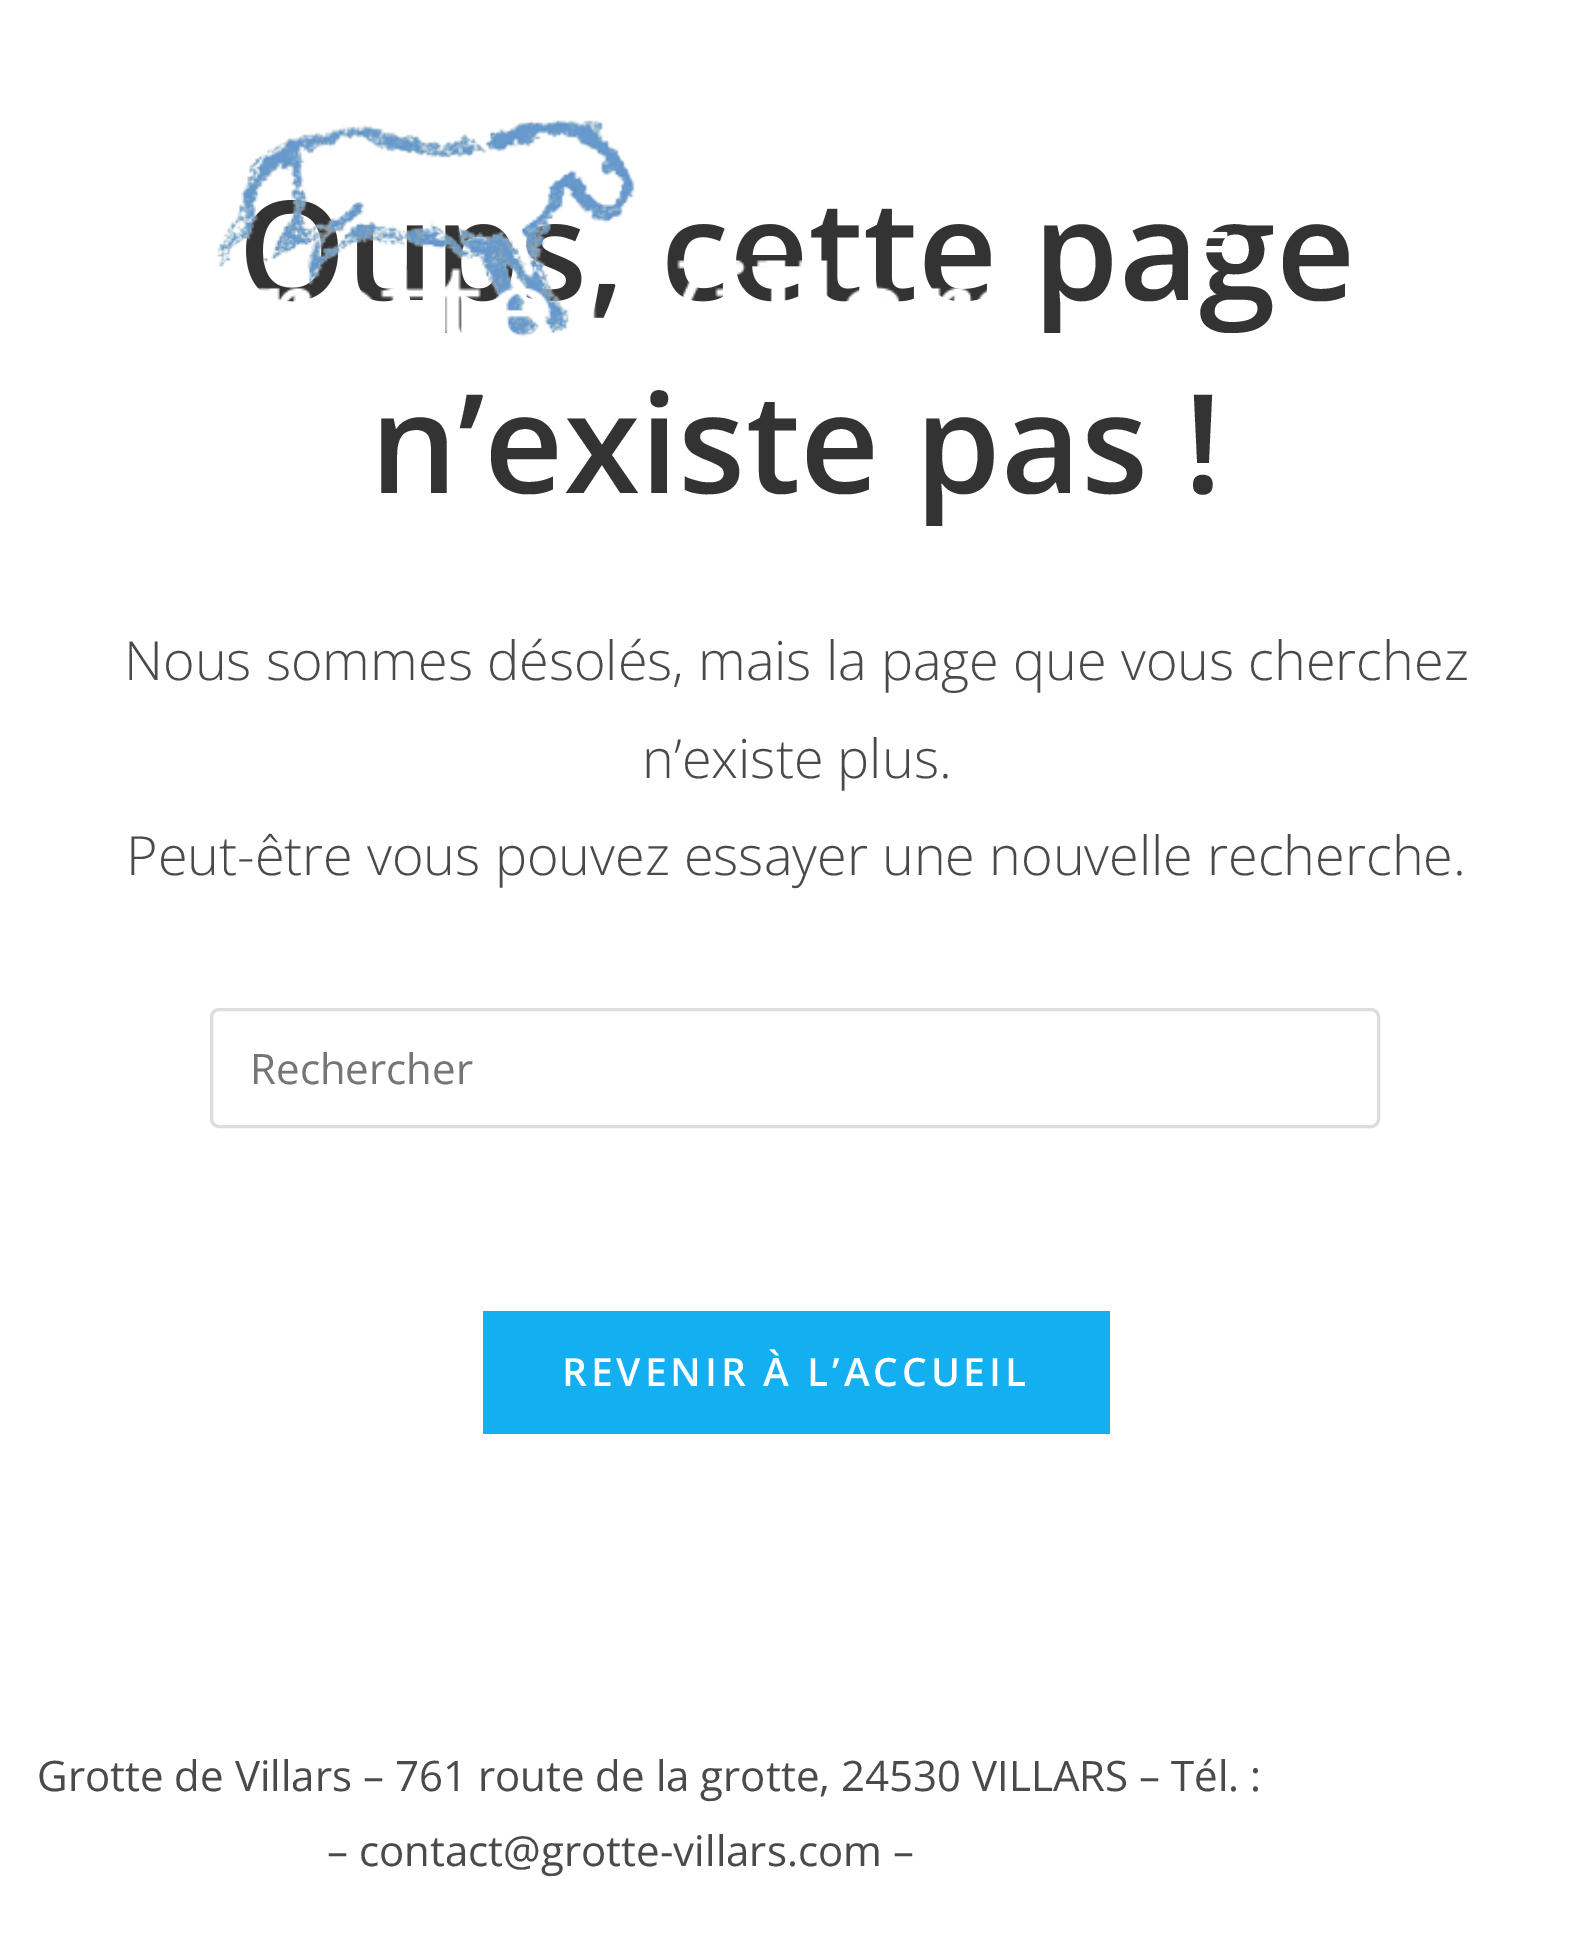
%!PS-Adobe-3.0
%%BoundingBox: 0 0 1592 1959
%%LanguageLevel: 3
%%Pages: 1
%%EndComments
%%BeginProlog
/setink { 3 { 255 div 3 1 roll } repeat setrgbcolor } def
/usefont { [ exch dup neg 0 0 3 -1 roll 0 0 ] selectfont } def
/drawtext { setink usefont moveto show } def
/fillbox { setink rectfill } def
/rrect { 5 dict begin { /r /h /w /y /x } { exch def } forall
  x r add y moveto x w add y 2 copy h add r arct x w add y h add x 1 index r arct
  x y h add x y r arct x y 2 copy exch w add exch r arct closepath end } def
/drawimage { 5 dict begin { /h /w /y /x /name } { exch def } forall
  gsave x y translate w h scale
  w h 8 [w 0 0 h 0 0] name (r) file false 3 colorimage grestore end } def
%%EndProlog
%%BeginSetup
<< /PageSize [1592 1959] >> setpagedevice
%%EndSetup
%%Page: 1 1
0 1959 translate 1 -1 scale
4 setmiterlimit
0 0 1592 1959 255 255 255 fillbox
(Oups, cette page) 238 300 /OpenSans-SemiBold 138 51 51 51 drawtext
(assets/img1.rgb) 217 120 770 217 drawimage
(assets/img2.rgb) 1188 224 40 29 drawimage
(n’existe pas !) 370 493 /OpenSans-SemiBold 138 51 51 51 drawtext
(Nous sommes désolés, mais la page que vous cherchez) 124 680 /OpenSans-Light 54 74 74 74 drawtext
(n’existe plus.) 642 778 /OpenSans-Light 54 74 74 74 drawtext
(Peut-être vous pouvez essayer une nouvelle recherche.) 126 875 /OpenSans-Light 54 74 74 74 drawtext
221 221 221 setink
3 setlinewidth
211.5 1009.5 1167 117 7.5 rrect stroke
(Rechercher) 250 1084 /OpenSans-Regular 42 117 117 117 drawtext
483 1311 627 123 19 175 240 fillbox
/OpenSans-SemiBold 39 usefont
255 255 255 setink
562 1386 moveto 3.9 0 (REVENIR À L’ACCUEIL) ashow
(Grotte de Villars – 761 route de la grotte, 24530 VILLARS – Tél. :) 37 1791 /OpenSans-Regular 42 74 74 74 drawtext
(– contact@grotte-villars.com –) 327 1866 /OpenSans-Regular 42 74 74 74 drawtext
showpage
%%EOF
